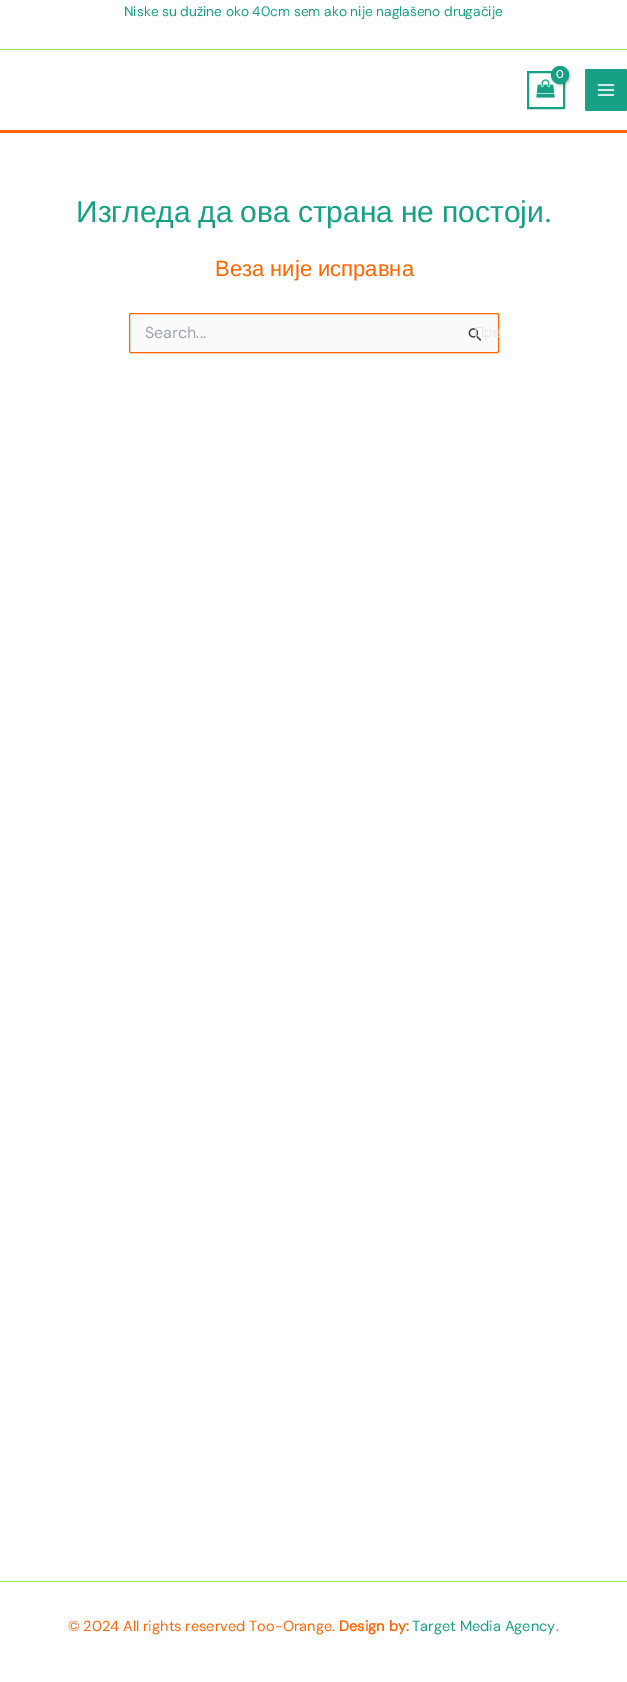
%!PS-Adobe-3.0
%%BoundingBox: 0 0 627 1682
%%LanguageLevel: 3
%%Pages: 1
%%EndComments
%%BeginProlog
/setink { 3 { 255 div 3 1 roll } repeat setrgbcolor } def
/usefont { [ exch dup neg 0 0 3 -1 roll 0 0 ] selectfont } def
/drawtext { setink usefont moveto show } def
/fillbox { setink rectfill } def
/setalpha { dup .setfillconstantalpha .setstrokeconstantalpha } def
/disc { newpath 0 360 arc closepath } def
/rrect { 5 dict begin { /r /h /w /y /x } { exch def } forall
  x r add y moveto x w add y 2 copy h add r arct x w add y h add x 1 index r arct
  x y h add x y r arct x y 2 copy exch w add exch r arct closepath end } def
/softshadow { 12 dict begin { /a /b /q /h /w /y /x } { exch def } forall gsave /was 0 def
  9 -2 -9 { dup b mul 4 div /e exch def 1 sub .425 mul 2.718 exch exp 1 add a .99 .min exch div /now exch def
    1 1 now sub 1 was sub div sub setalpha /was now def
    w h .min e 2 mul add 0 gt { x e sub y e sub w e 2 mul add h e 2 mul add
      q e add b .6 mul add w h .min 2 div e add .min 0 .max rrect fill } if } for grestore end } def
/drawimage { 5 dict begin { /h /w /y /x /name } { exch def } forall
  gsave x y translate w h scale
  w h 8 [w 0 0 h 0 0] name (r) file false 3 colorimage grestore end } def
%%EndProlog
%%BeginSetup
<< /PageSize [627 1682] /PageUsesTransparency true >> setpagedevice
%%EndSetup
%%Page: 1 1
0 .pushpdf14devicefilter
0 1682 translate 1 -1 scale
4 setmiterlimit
0 0 627 1682 255 255 255 fillbox
0 49 627 1 155 237 88 fillbox
(Niske su dužine oko 40cm sem ako nije naglašeno drugačije) 124 16 /DMSans-Regular 13.7 22 160 133 drawtext
0 130 627 3 255 102 0 fillbox
22 160 133 setink
2 setlinewidth
528 72 36 36 rectstroke
(assets/img1.rgb) 536 79 19 19 drawimage
0 0 0 setink
552 67 18 18 9 1.5 0.3 softshadow
22 160 133 setink
560 75 9 disc fill
(0) 556 78 /DMSans-Bold 11 255 255 255 drawtext
22 160 133 setink
585 69 42 42 2 rrect fill
(assets/img2.rgb) 597 84 18 12 drawimage
/LiberationSans-Regular 30 usefont
76 222 moveto -0.5 0 32 (Изгледа да ова страна не постоји) widthshow
(.) 545 222 /DMSans-Regular 30 22 160 133 drawtext
(Веза није исправна) 215 276 /LiberationSans-Regular 22 255 102 0 drawtext
0 0 0 setink
129 314 370 40 2 1 0.05 softshadow
250 250 250 setink
129.5 313.5 369 39 1.5 rrect gsave fill grestore
255 102 0 setink
1 setlinewidth
stroke
(Search...) 145 338 /DMSans-Regular 16 156 163 175 drawtext
(assets/img3.rgb) 468 328 14 13 drawimage
gsave
454 313 45 40 2 rrect clip newpath
(Пре) 474 337 /LiberationSans-Regular 14.6 237 231 227 drawtext
grestore
0 1581 627 1 155 237 88 fillbox
(© 2024 All rights reserved Too-Orange.) 68 1631 /DMSans-Regular 14.6 255 102 0 drawtext
(Design by:) 339 1631 /DMSans-Bold 14.6 255 102 0 drawtext
(Target Media Agency) 412 1631 /DMSans-Regular 14.6 22 160 133 drawtext
(.) 556 1631 /DMSans-Regular 14.6 255 102 0 drawtext
.poppdf14devicefilter showpage
%%EOF
